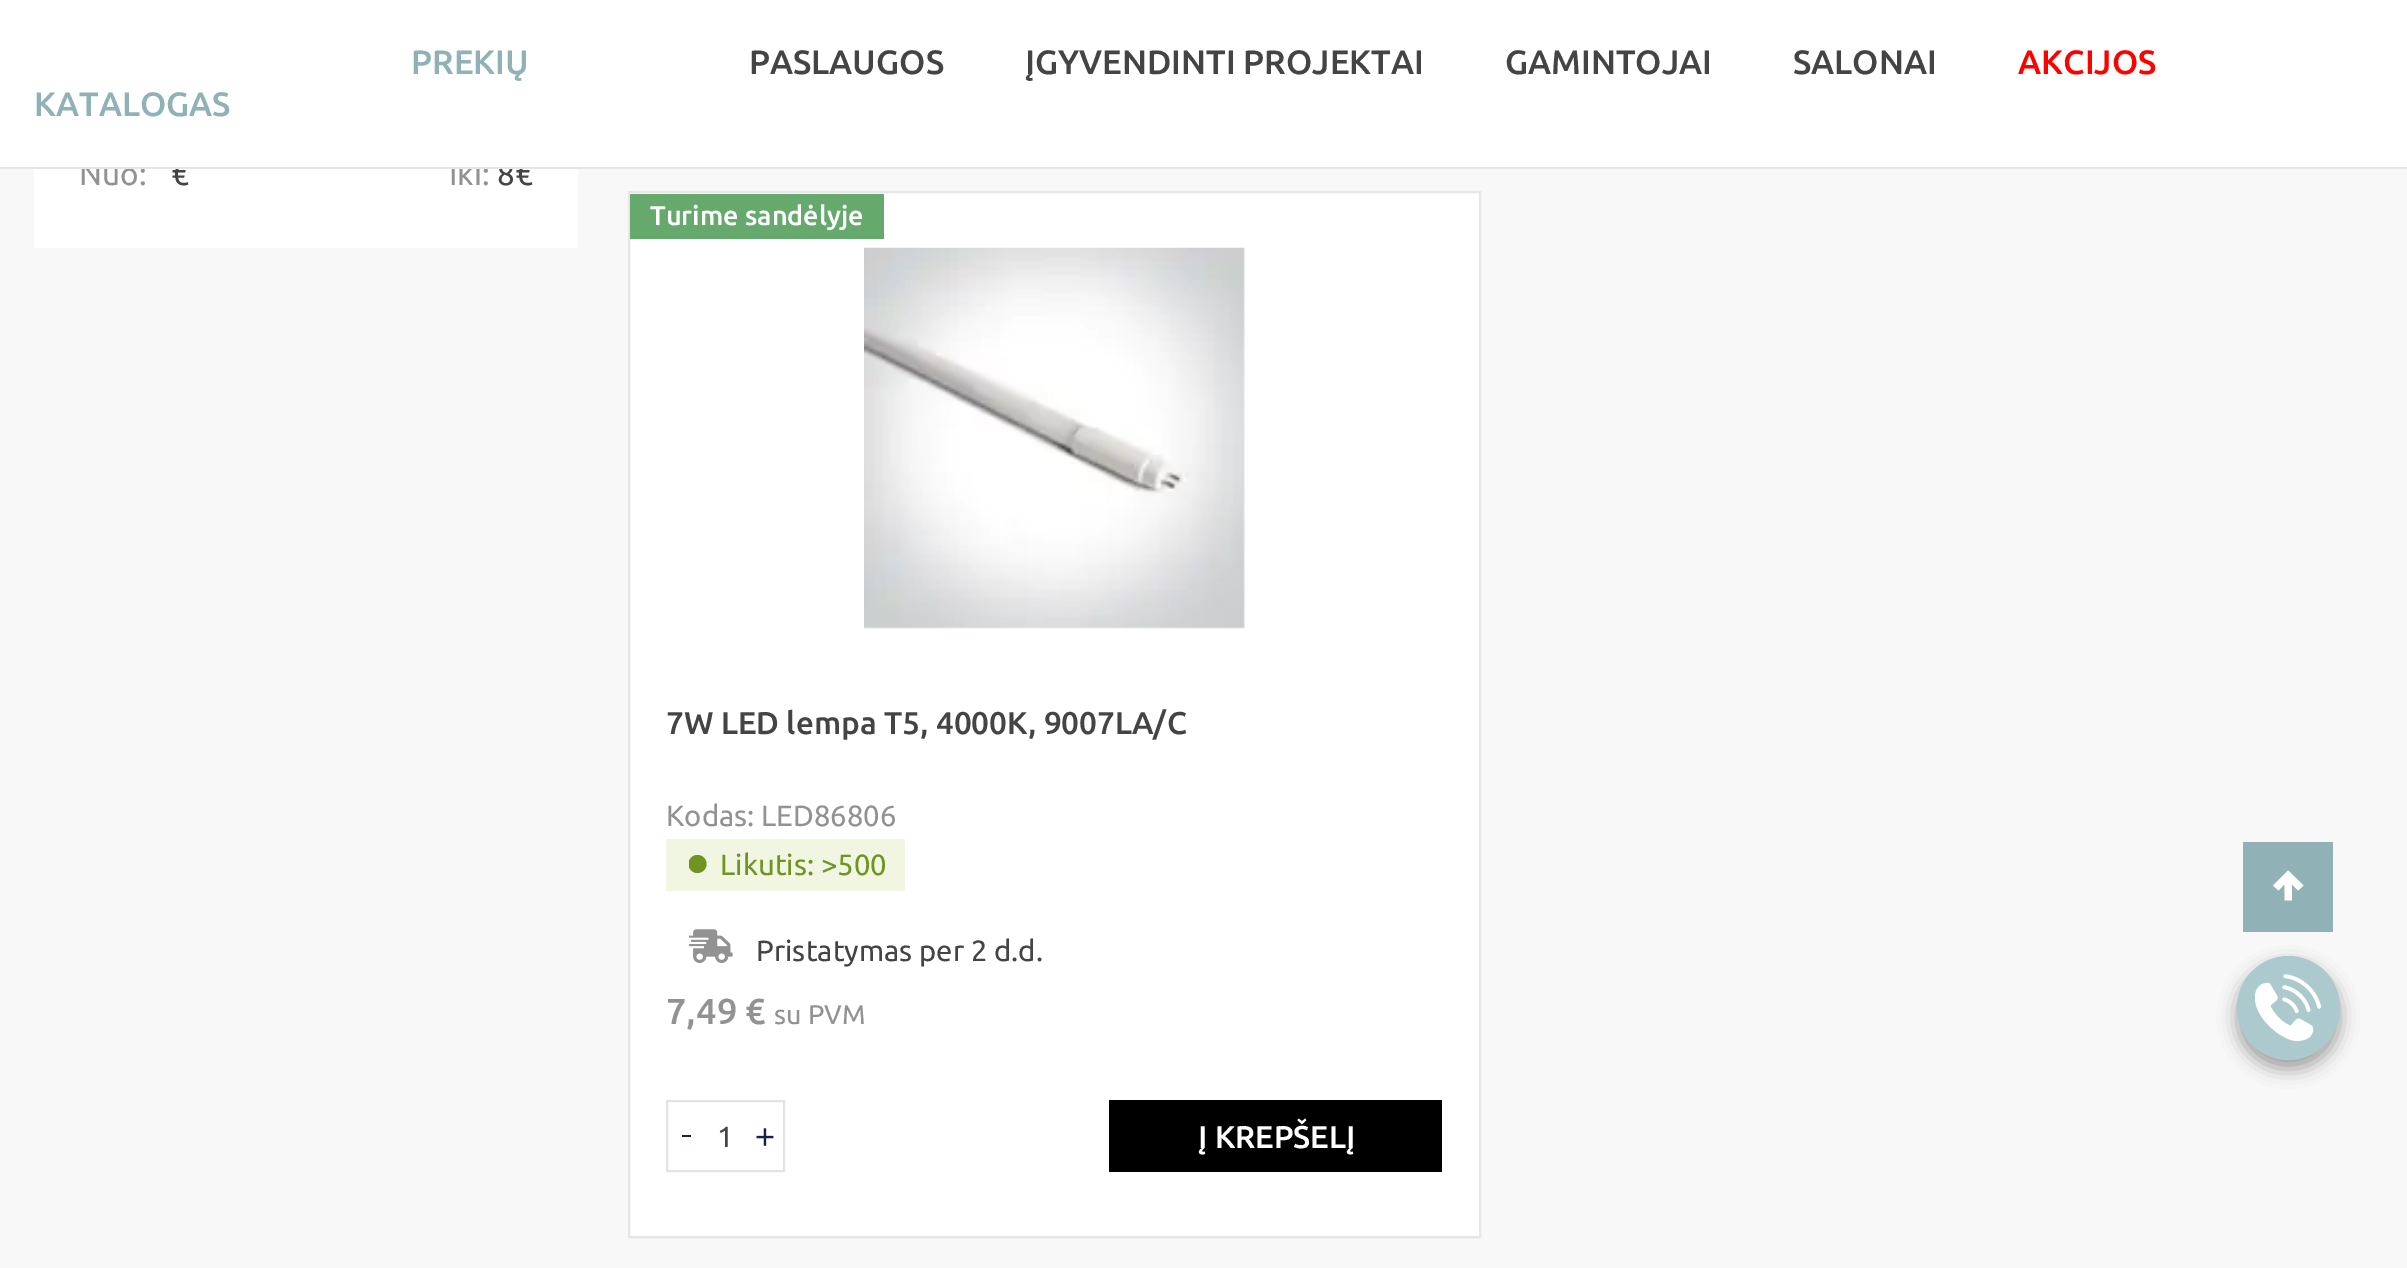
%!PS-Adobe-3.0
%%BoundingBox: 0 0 2407 1268
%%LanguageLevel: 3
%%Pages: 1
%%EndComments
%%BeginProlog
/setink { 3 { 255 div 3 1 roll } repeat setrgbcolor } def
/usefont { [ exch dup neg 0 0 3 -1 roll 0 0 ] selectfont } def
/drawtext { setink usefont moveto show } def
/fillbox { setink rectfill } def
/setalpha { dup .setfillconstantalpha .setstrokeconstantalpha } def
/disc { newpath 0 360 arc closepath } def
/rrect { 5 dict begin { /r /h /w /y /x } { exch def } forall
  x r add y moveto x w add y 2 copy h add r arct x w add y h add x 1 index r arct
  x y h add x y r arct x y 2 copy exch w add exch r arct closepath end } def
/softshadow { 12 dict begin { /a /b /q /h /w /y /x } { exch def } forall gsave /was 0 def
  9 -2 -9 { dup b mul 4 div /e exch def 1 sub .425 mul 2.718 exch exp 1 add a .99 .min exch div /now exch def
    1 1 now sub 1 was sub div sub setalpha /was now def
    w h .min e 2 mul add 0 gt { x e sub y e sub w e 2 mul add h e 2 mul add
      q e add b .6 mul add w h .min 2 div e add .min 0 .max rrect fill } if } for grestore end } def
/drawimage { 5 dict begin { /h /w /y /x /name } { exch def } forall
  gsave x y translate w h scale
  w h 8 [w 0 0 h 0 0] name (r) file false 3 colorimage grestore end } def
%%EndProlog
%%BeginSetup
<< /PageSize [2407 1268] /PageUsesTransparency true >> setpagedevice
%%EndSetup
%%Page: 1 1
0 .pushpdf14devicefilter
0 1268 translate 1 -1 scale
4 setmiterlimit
0 0 2407 1268 248 248 248 fillbox
34 169 544 79 255 255 255 fillbox
(Nuo:) 79 185 /Ubuntu-Regular 31.5 146 146 146 drawtext
(€) 171 185 /Ubuntu-Regular 31.5 68 68 68 drawtext
(Iki:) 449 185 /Ubuntu-Regular 31.5 146 146 146 drawtext
(8€) 497 185 /Ubuntu-Regular 31.5 68 68 68 drawtext
0 0 2407 167 255 255 255 fillbox
0 167 2407 2 229 229 229 fillbox
(PREKIŲ) 411 74 /Ubuntu-Medium 33.75 144 177 181 drawtext
(KATALOGAS) 34 116 /Ubuntu-Medium 33.75 144 177 181 drawtext
(PASLAUGOS) 749 74 /Ubuntu-Medium 33.75 68 68 68 drawtext
(ĮGYVENDINTI PROJEKTAI) 1025 74 /Ubuntu-Medium 33.75 68 68 68 drawtext
(GAMINTOJAI) 1505 74 /Ubuntu-Medium 33.75 68 68 68 drawtext
(SALONAI) 1793 74 /Ubuntu-Medium 33.75 68 68 68 drawtext
(AKCIJOS) 2018 74 /Ubuntu-Medium 33.75 255 0 0 drawtext
255 255 255 setink
629 192 moveto 1480 192 lineto 1480 1237 lineto 629 1237 lineto closepath gsave fill grestore
230 230 230 setink
2 setlinewidth
stroke
630 194 254 45 101 169 108 fillbox
(Turime sandėlyje) 650 225 /Ubuntu-Medium 27 255 255 255 drawtext
(assets/img1.rgb) 864 247 381 382 drawimage
(7W LED lempa T5, 4000K, 9007LA/C) 666 734 /Ubuntu-Medium 31.5 68 68 68 drawtext
(Kodas: LED86806) 666 826 /Ubuntu-Regular 29.25 146 146 146 drawtext
666 839 239 52 240 246 225 fillbox
gsave
689 855 18 18 rectclip
112 148 33 setink
697.5 864 9 disc fill
grestore
(Likutis: >500) 720 875 /Ubuntu-Regular 29.25 112 148 33 drawtext
(assets/img2.rgb) 689 929 44 34 drawimage
(Pristatymas per 2 d.d.) 756 961 /Ubuntu-Regular 29.25 68 68 68 drawtext
(7,49 €) 666 1024 /Ubuntu-Medium 36 146 146 146 drawtext
(su PVM) 774 1024 /Ubuntu-Regular 27 146 146 146 drawtext
227 227 227 setink
667 1101 117 70 rectstroke
682 1135 9 2 26 31 74 fillbox
(1) 717 1147 /Ubuntu-Regular 29.25 68 68 68 drawtext
(assets/img3.rgb) 756 1128 18 18 drawimage
1109 1100 333 72 0 0 0 fillbox
(Į KREPŠELĮ) 1198 1148 /Ubuntu-Medium 31.5 255 255 255 drawtext
2243 842 90 90 144 177 181 fillbox
255 255 255 setink
2273 885.5 moveto 2288 870.5 lineto 2303.5 885.5 lineto 2298 890.5 lineto 2292 884.5 lineto 2292 900.5 lineto 2284.5 900.5 lineto 2284.5 884.5 lineto 2278.5 890.5 lineto closepath fill
0 0 0 setink
2237 965 103 104 51.5 9 0.35 softshadow
172 202 205 setink
2237 956 103 104 51.5 rrect fill
(assets/img4.rgb) 2255 974 66 68 drawimage
.poppdf14devicefilter showpage
%%EOF
